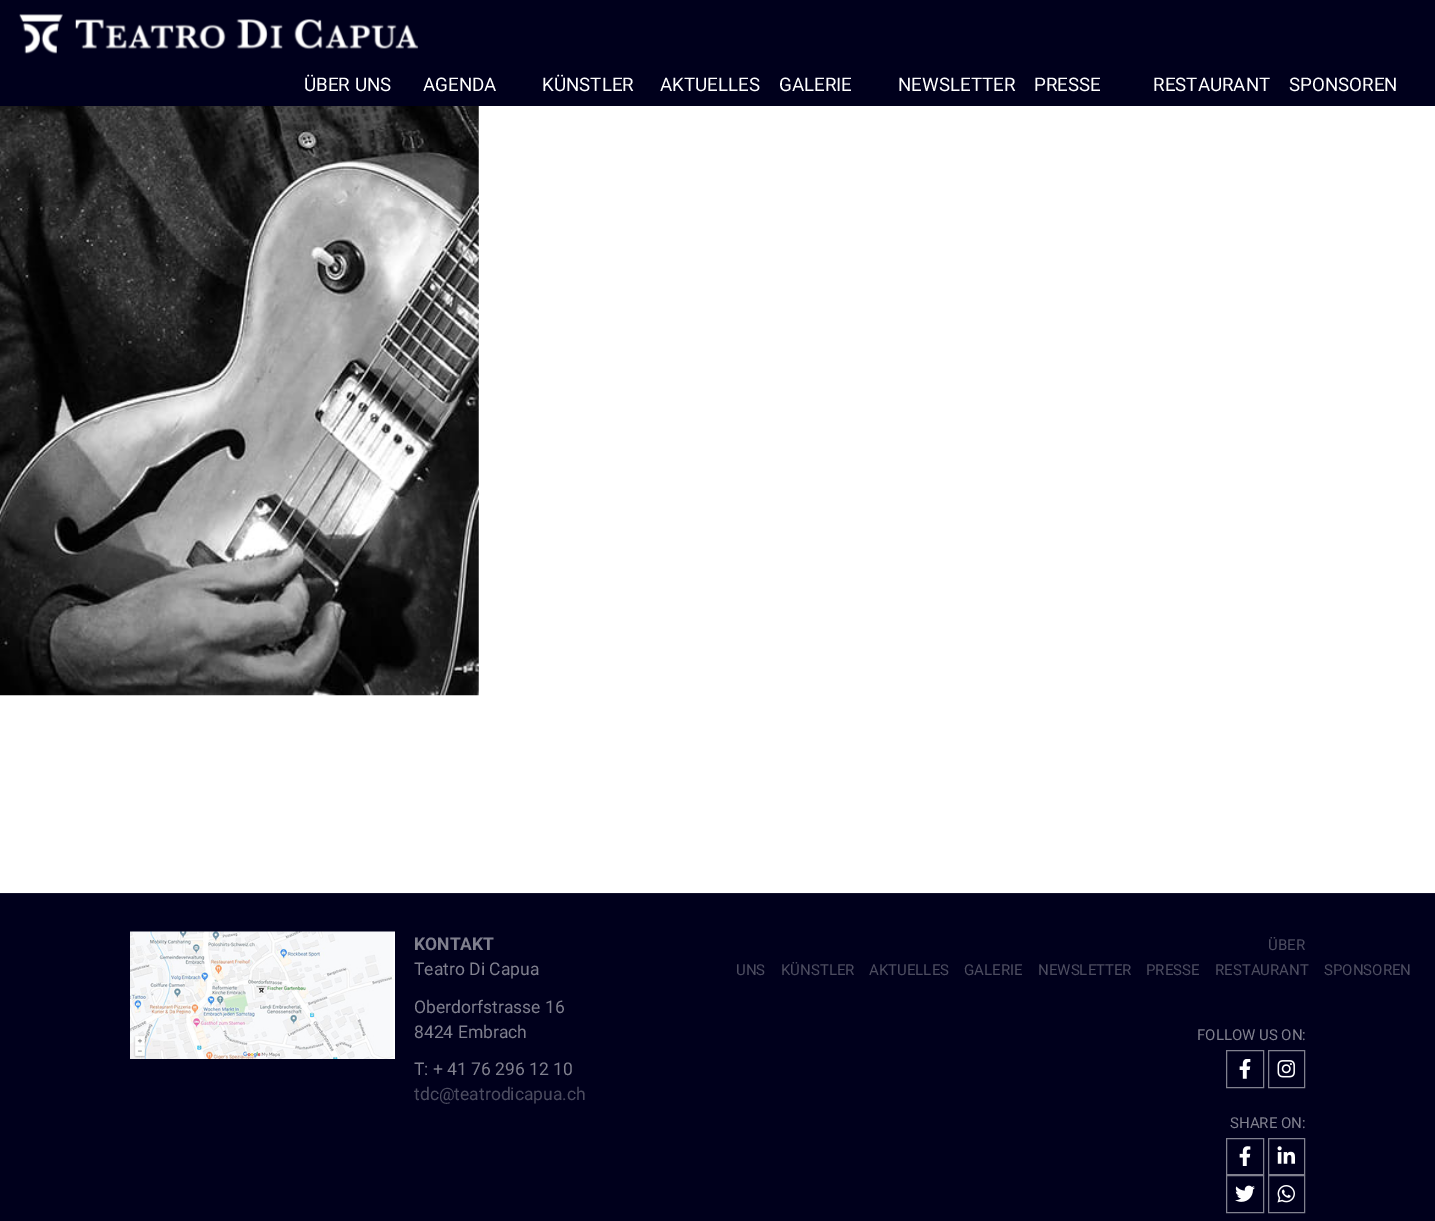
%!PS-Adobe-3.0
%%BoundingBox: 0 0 1435 1221
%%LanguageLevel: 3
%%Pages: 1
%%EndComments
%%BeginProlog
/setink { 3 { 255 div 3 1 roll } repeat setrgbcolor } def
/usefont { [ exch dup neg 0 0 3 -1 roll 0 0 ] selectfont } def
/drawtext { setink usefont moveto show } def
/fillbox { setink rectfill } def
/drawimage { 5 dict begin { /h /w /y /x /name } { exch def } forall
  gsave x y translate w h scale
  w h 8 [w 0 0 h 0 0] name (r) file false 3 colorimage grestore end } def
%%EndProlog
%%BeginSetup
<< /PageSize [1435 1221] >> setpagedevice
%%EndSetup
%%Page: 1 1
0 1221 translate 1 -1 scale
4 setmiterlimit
0 0 1435 1221 0 0 28 fillbox
(assets/img1.rgb) 19 14 400 40 drawimage
(ÜBER UNS) 304 91 /Roboto-Regular 18.75 255 255 255 drawtext
(AGENDA) 423 91 /Roboto-Regular 18.75 255 255 255 drawtext
(KÜNSTLER) 542 91 /Roboto-Regular 18.75 255 255 255 drawtext
(AKTUELLES) 660 91 /Roboto-Regular 18.75 255 255 255 drawtext
(GALERIE) 779 91 /Roboto-Regular 18.75 255 255 255 drawtext
(NEWSLETTER) 898 91 /Roboto-Regular 18.75 255 255 255 drawtext
(PRESSE) 1034 91 /Roboto-Regular 18.75 255 255 255 drawtext
(RESTAURANT) 1153 91 /Roboto-Regular 18.75 255 255 255 drawtext
(SPONSOREN) 1289 91 /Roboto-Regular 18.75 255 255 255 drawtext
478 106 957 589 255 255 255 fillbox
0 695 1435 198 255 255 255 fillbox
(assets/img2.rgb) 0 106 479 590 drawimage
0 893 1435 1 18 18 44 fillbox
(assets/img3.rgb) 130 931 265 128 drawimage
(KONTAKT) 414 950 /Roboto-Bold 17.5 128 128 142 drawtext
(Teatro Di Capua) 414 975 /Roboto-Regular 17.5 128 128 142 drawtext
(Oberdorfstrasse 16) 414 1013 /Roboto-Regular 17.5 128 128 142 drawtext
(8424 Embrach) 414 1038 /Roboto-Regular 17.5 128 128 142 drawtext
(T: + 41 76 296 12 10) 414 1075 /Roboto-Regular 17.5 128 128 142 drawtext
(tdc@teatrodicapua.ch) 414 1100 /Roboto-Regular 17.5 77 77 96 drawtext
(ÜBER) 1268 950 /Roboto-Regular 15 77 77 96 drawtext
(UNS) 736 975 /Roboto-Regular 15 77 77 96 drawtext
(KÜNSTLER) 781 975 /Roboto-Regular 15 77 77 96 drawtext
(AKTUELLES) 869 975 /Roboto-Regular 15 77 77 96 drawtext
(GALERIE) 964 975 /Roboto-Regular 15 77 77 96 drawtext
(NEWSLETTER) 1038 975 /Roboto-Regular 15 77 77 96 drawtext
(PRESSE) 1146 975 /Roboto-Regular 15 77 77 96 drawtext
(RESTAURANT) 1215 975 /Roboto-Regular 15 77 77 96 drawtext
(SPONSOREN) 1324 975 /Roboto-Regular 15 77 77 96 drawtext
(FOLLOW US ON:) 1197 1040 /Roboto-Regular 15 128 128 142 drawtext
1226.5 1050.5 37 37 rectstroke
(assets/img4.rgb) 1239 1059 12 20 drawimage
1268.5 1050.5 36 37 rectstroke
(assets/img5.rgb) 1277 1060 18 18 drawimage
(SHARE ON:) 1230 1128 /Roboto-Regular 15 128 128 142 drawtext
1226.5 1138.5 37 36 rectstroke
(assets/img6.rgb) 1239 1146 12 20 drawimage
1268.5 1138.5 36 36 rectstroke
(assets/img7.rgb) 1277 1146 18 18 drawimage
1226.5 1175.5 37 37 rectstroke
(assets/img8.rgb) 1235 1185 20 17 drawimage
1268.5 1175.5 36 37 rectstroke
(assets/img9.rgb) 1277 1185 18 18 drawimage
showpage
%%EOF
